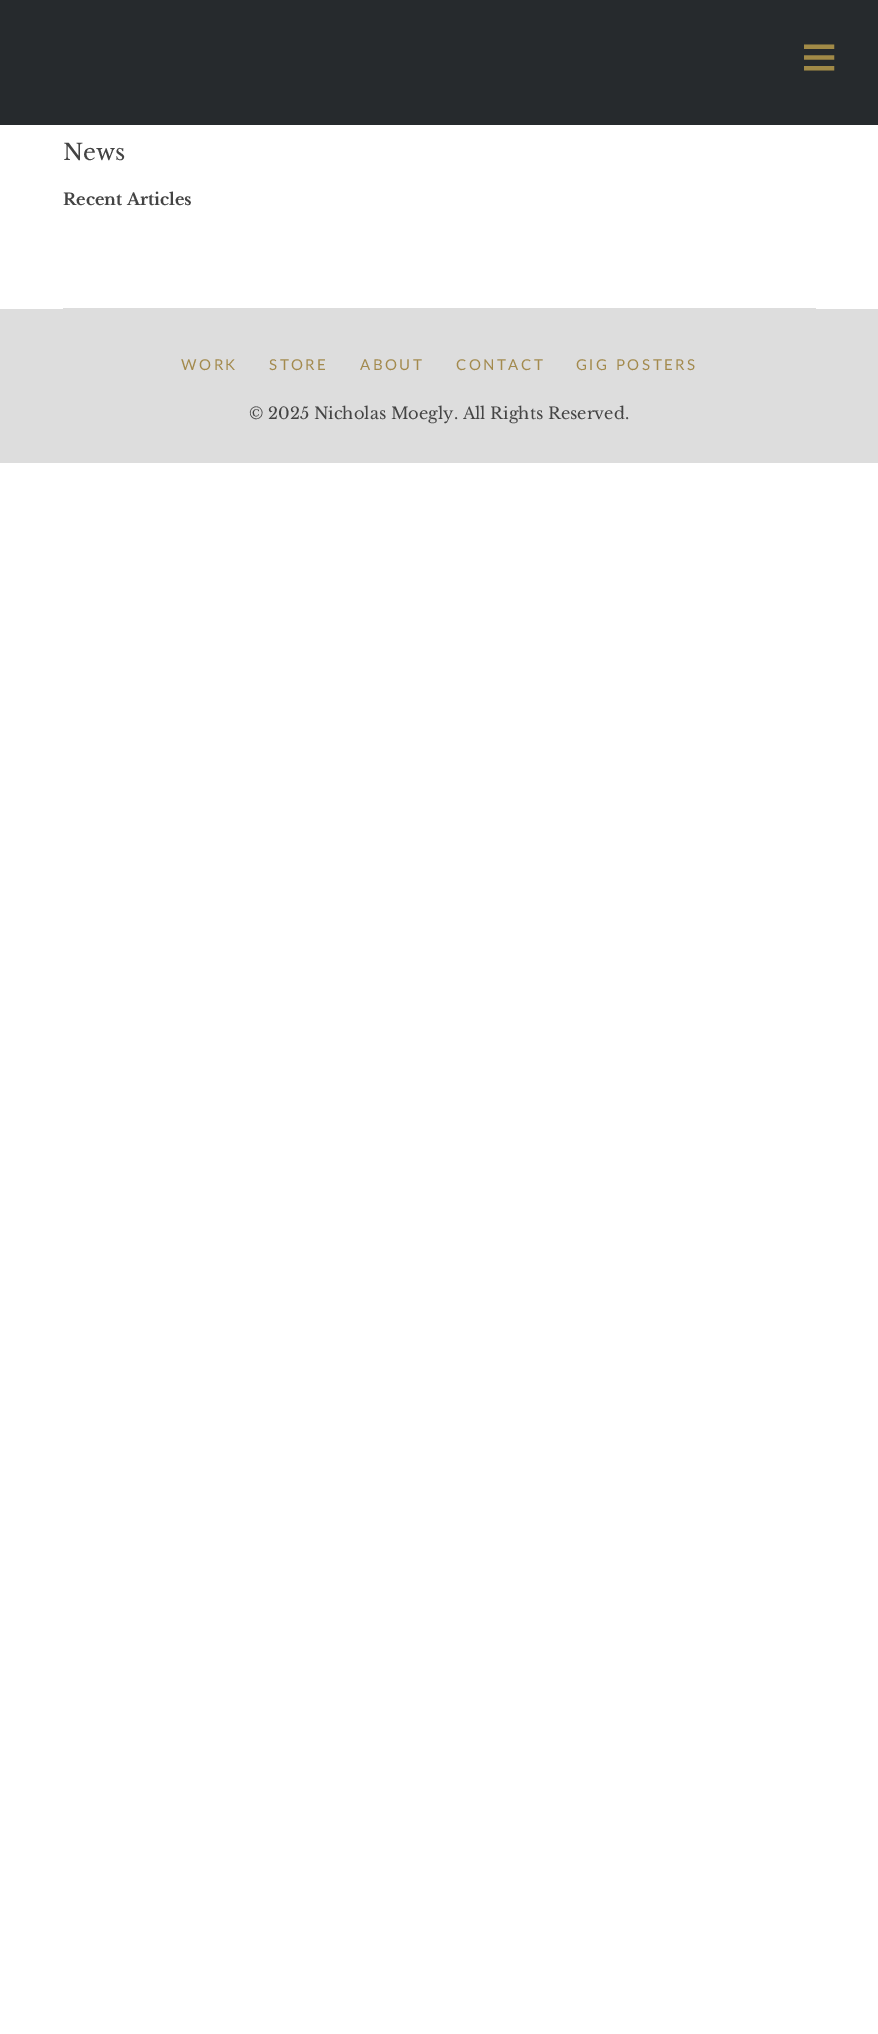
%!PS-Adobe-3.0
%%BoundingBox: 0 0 878 2034
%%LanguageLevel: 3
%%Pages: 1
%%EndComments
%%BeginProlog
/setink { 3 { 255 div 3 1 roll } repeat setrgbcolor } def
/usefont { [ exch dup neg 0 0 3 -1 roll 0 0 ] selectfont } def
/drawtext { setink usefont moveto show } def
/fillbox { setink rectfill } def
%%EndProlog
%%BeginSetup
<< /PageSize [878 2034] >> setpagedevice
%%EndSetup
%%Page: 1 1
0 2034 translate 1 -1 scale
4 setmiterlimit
0 0 878 2034 255 255 255 fillbox
0 0 878 125 38 42 45 fillbox
(≡) 801 78 /LiberationSans-Regular 62 161 138 71 drawtext
(News) 63 160 /LibreBaskerville-Regular 22.5 68 68 68 drawtext
(Recent Articles) 63 205 /LibreBaskerville-Bold 16.25 68 68 68 drawtext
63 308 753 1 221 221 221 fillbox
0 309 878 154 221 221 221 fillbox
/Lato-Regular 15 usefont
163 138 77 setink
181 370 moveto 2.5 0 (WORK) ashow
269 370 moveto 2.5 0 (STORE) ashow
360 370 moveto 2.5 0 (ABOUT) ashow
456 370 moveto 2.5 0 (CONTACT) ashow
576 370 moveto 2.5 0 (GIG POSTERS) ashow
(© 2025 Nicholas Moegly. All Rights Reserved.) 249 419 /LibreBaskerville-Regular 16.25 68 68 68 drawtext
showpage
%%EOF
